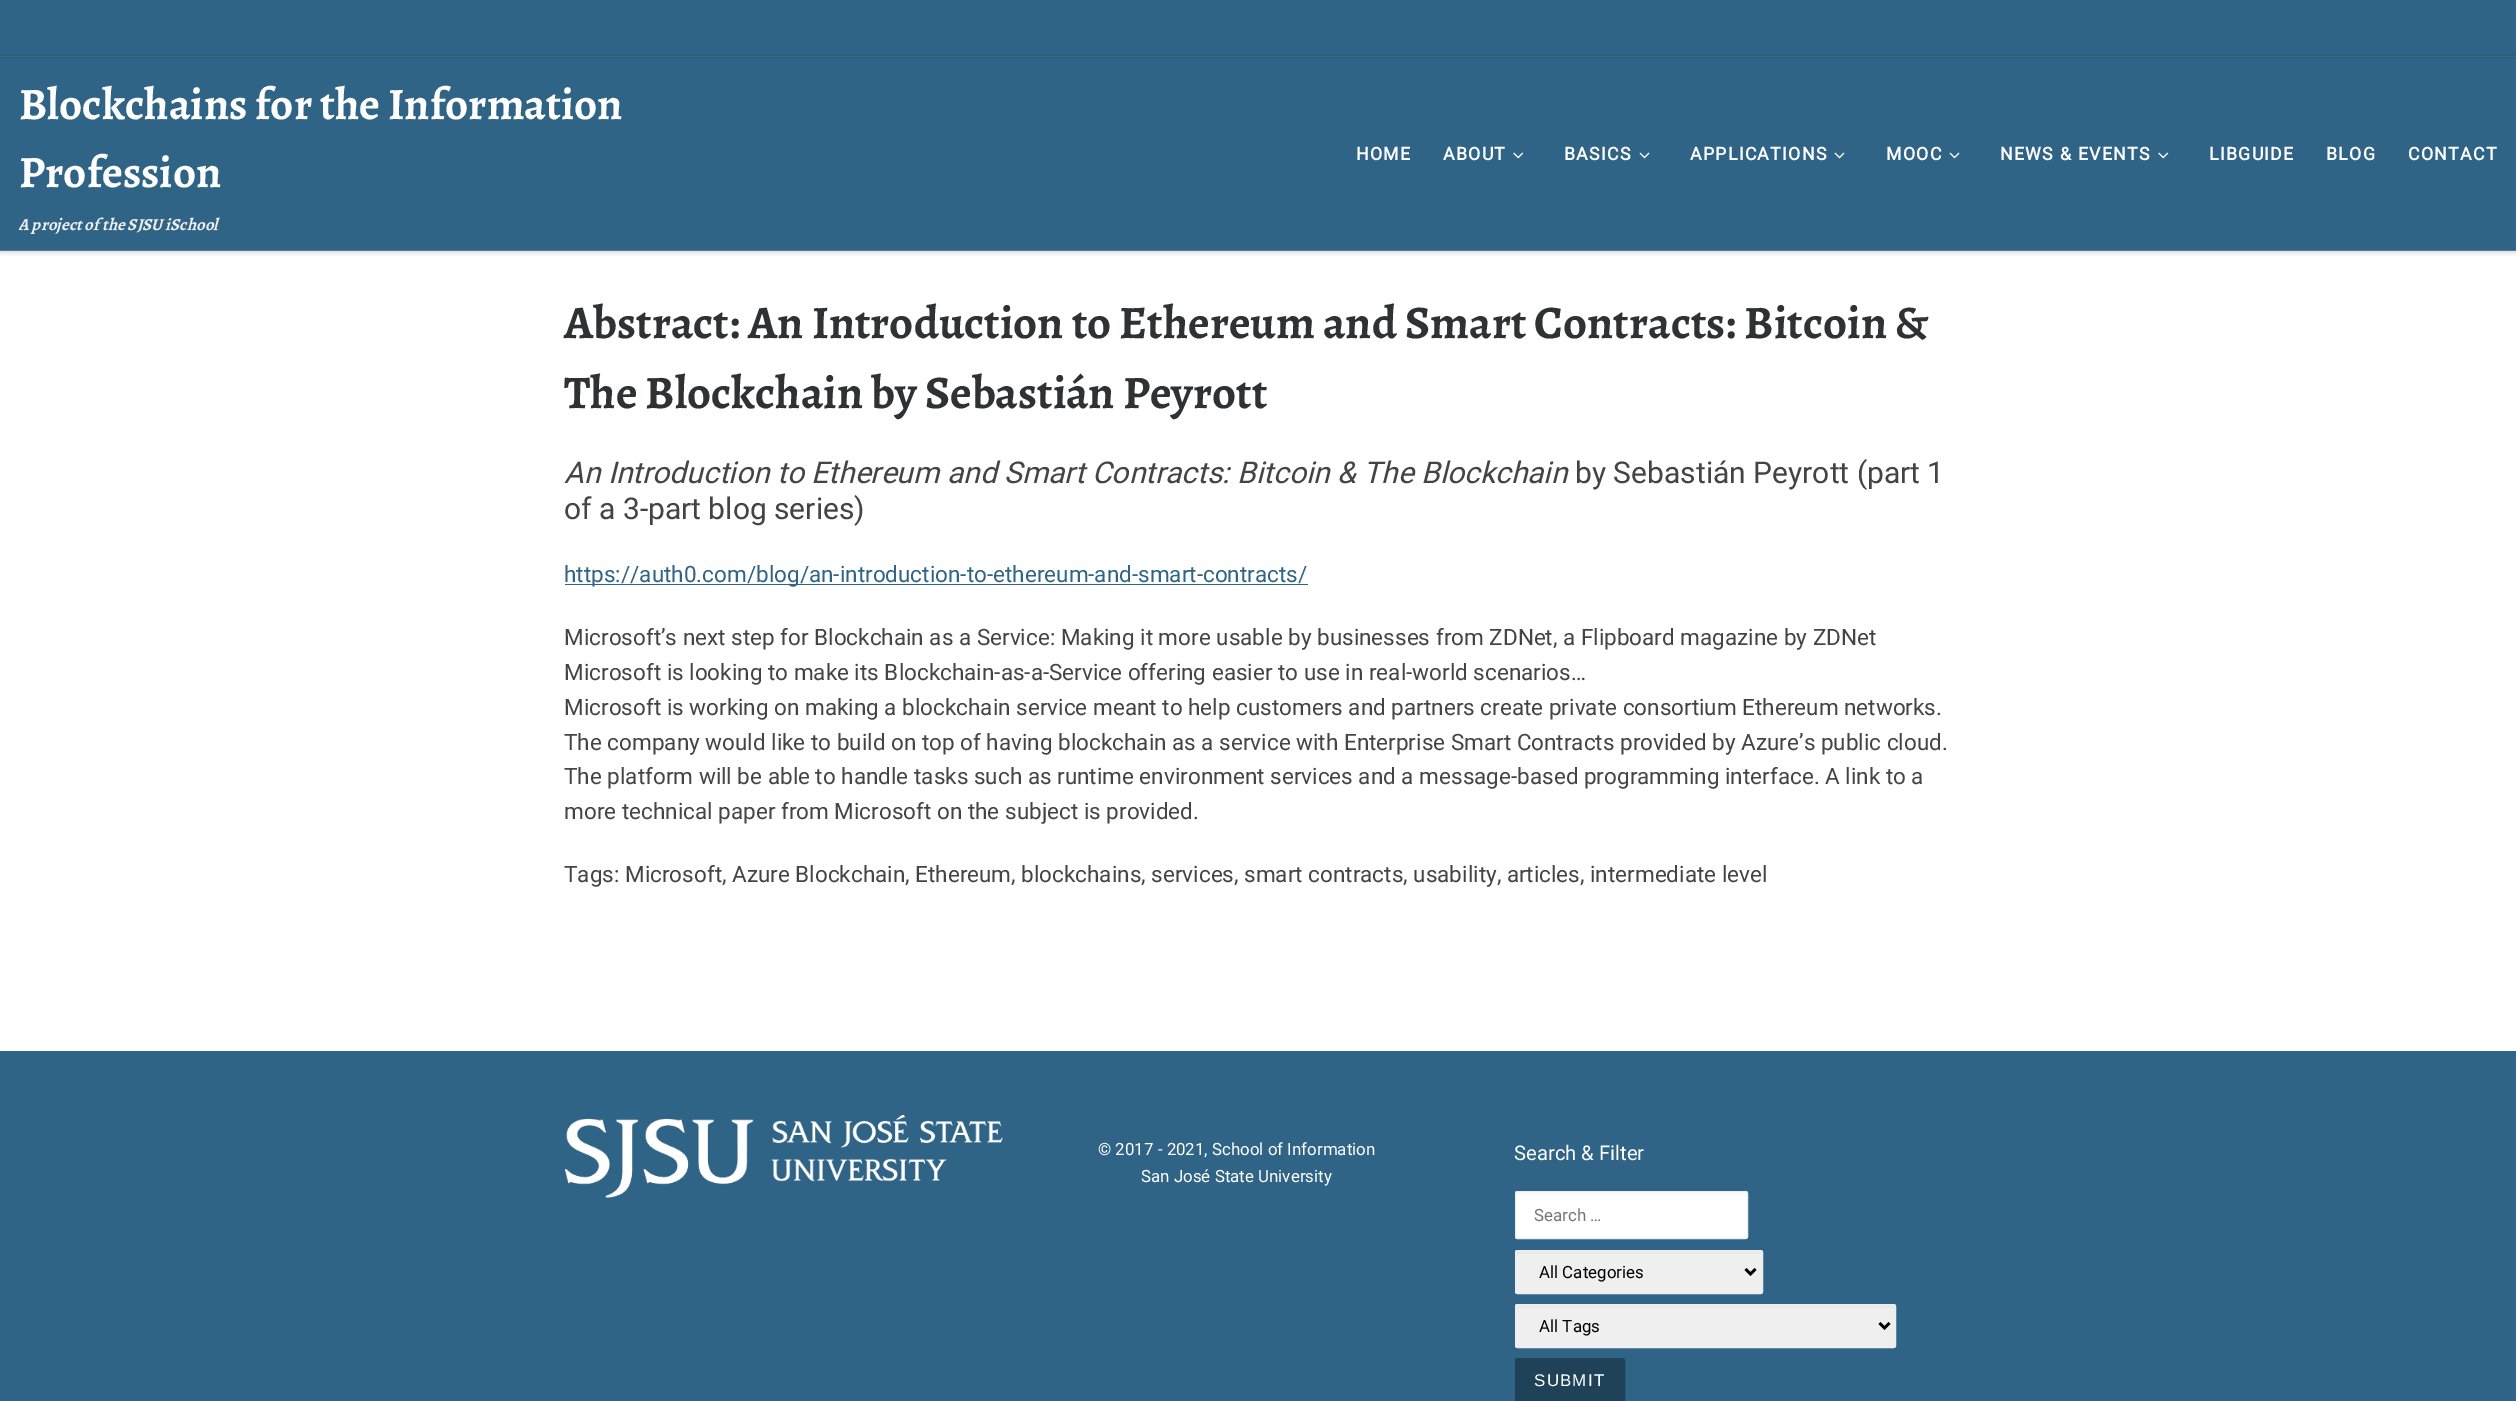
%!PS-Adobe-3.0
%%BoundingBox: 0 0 2516 1401
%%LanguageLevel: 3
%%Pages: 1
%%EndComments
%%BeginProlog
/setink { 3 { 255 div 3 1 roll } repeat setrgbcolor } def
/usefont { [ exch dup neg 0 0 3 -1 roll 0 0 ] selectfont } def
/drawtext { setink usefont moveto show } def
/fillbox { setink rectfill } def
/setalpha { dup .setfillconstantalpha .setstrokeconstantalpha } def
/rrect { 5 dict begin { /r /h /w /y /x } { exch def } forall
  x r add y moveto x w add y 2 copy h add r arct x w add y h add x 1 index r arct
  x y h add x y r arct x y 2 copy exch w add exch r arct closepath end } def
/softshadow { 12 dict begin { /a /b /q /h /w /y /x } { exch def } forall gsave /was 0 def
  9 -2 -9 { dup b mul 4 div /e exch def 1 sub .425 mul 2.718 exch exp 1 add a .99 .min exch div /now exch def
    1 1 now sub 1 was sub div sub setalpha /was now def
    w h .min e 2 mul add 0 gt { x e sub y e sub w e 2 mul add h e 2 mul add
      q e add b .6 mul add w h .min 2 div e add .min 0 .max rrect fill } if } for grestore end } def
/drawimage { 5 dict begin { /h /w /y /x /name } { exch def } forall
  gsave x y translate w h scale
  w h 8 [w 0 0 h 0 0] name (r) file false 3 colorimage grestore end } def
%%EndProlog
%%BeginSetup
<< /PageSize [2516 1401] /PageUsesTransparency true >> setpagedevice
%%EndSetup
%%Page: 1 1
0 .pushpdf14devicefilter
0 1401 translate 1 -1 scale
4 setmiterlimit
0 0 2516 1401 255 255 255 fillbox
102 102 102 setink
0 3 2516 251 0 1 0.08 softshadow
0 0 2516 250 47 100 134 fillbox
0 56 2516 1 66 114 145 fillbox
0 250 2516 1 94 135 162 fillbox
gsave
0 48 moveto 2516 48 lineto 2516 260 lineto 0 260 lineto closepath 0 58 moveto 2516 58 lineto 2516 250 lineto 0 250 lineto closepath eoclip newpath
0 0 0 setink
0 58 2516 192 0 3 0.2 softshadow
grestore
(Blockchains for the Information) 19 119 /Alegreya-Bold 45 255 255 255 drawtext
(Profession) 19 187 /Alegreya-Bold 45 255 255 255 drawtext
gsave
19 58 792 192 rectclip
(A project of the SJSU iSchool) 18 230 /Alegreya-BoldItalic 16.9 236 238 239 drawtext
grestore
/Roboto-Bold 17.75 usefont
1356 160 moveto 1.25 0 (HOME) ashow
1443 160 moveto 1.25 0 (ABOUT) ashow
(assets/img1.rgb) 1513 152 11 7 drawimage
1564 160 moveto 1.25 0 (BASICS) ashow
(assets/img2.rgb) 1639 152 11 7 drawimage
1690 160 moveto 1.25 0 (APPLICATIONS) ashow
(assets/img2.rgb) 1834 152 11 7 drawimage
1886 160 moveto 1.25 0 (MOOC) ashow
(assets/img2.rgb) 1949 152 11 7 drawimage
2000 160 moveto 1.25 0 (NEWS & EVENTS) ashow
(assets/img1.rgb) 2158 152 11 7 drawimage
2209 160 moveto 1.25 0 (LIBGUIDE) ashow
2326 160 moveto 1.25 0 (BLOG) ashow
2408 160 moveto 1.25 0 (CONTACT) ashow
(Abstract: An Introduction to Ethereum and Smart Contracts: Bitcoin &) 564 338 /Alegreya-Bold 46.65 48 49 51 drawtext
(The Blockchain by Sebastián Peyrott) 564 408 /Alegreya-Bold 46.65 48 49 51 drawtext
(An Introduction to Ethereum and Smart Contracts: Bitcoin & The Blockchain) 564 483 /Roboto-Italic 30 68 68 68 drawtext
(by Sebastián Peyrott \(part 1) 1575 483 /Roboto-Regular 30 68 68 68 drawtext
(of a 3-part blog series\)) 564 519 /Roboto-Regular 30 68 68 68 drawtext
565 584 743 1 47 100 134 fillbox
(https://auth0.com/blog/an-introduction-to-ethereum-and-smart-contracts/) 564 582 /Roboto-Regular 22.5 47 100 134 drawtext
(Microsoft’s next step for Blockchain as a Service: Making it more usable by businesses from ZDNet, a Flipboard magazine by ZDNet) 564 645 /Roboto-Regular 22.5 68 68 68 drawtext
(Microsoft is looking to make its Blockchain-as-a-Service offering easier to use in real-world scenarios…) 564 680 /Roboto-Regular 22.5 68 68 68 drawtext
(Microsoft is working on making a blockchain service meant to help customers and partners create private consortium Ethereum networks.) 564 715 /Roboto-Regular 22.5 68 68 68 drawtext
(The company would like to build on top of having blockchain as a service with Enterprise Smart Contracts provided by Azure’s public cloud.) 564 750 /Roboto-Regular 22.5 68 68 68 drawtext
(The platform will be able to handle tasks such as runtime environment services and a message-based programming interface. A link to a) 564 784 /Roboto-Regular 22.5 68 68 68 drawtext
(more technical paper from Microsoft on the subject is provided.) 564 819 /Roboto-Regular 22.5 68 68 68 drawtext
(Tags: Microsoft, Azure Blockchain, Ethereum, blockchains, services, smart contracts, usability, articles, intermediate level) 564 882 /Roboto-Regular 22.5 68 68 68 drawtext
0 1051 2516 350 47 100 134 fillbox
(assets/img3.rgb) 565 1115 438 83 drawimage
(© 2017 - 2021, School of Information) 1098 1155 /Roboto-Regular 16.9 255 255 255 drawtext
(San José State University) 1141 1182 /Roboto-Regular 16.9 255 255 255 drawtext
(Search & Filter) 1514 1160 /Roboto-Regular 20.25 255 255 255 drawtext
1515 1191 233 48 2.5 rrect fill
249 249 249 setink
1518 1195 moveto 1745 1195 lineto 1746 1196 lineto 1746 1194 lineto 1746 1193 1746 1193 1745 1193 curveto 1517 1193 lineto 1516 1193 1516 1193 1516 1194 curveto 1516 1196 lineto closepath fill
236 238 239 setink
1515.5 1191.5 232 47 2 rrect stroke
(Search …) 1534 1221 /Roboto-Regular 16.9 117 117 117 drawtext
239 239 239 setink
1515 1250 248 44 2.5 rrect fill
233 233 233 setink
1518 1254 moveto 1761 1254 lineto 1761 1255 lineto 1761 1254 1762 1251 1760 1251 curveto 1517 1251 lineto 1515 1251 1516 1254 1516 1255 curveto 1516 1254 1517 1254 1518 1254 curveto closepath fill
236 238 239 setink
1515.5 1250.5 247 43 2 rrect stroke
0 0 0 setink
2.5 setlinewidth
1745.5 1269 moveto 1750.5 1274 lineto 1755.5 1269 lineto stroke
(All Categories) 1539 1278 /Roboto-Regular 16.9 0 0 0 drawtext
239 239 239 setink
1515 1304 381 44 2.5 rrect fill
233 233 233 setink
1518 1308 moveto 1894 1308 lineto 1895 1309 lineto 1895 1308 1896 1305 1894 1305 curveto 1517 1305 lineto 1515 1305 1516 1308 1516 1309 curveto 1516 1308 1517 1308 1518 1308 curveto closepath fill
236 238 239 setink
1 setlinewidth
1515.5 1304.5 380 43 2 rrect stroke
0 0 0 setink
2.5 setlinewidth
1879.5 1323 moveto 1884.5 1328 lineto 1889.5 1323 lineto stroke
(All Tags) 1539 1332 /Roboto-Regular 16.9 0 0 0 drawtext
31 66 89 setink
1516.5 1359.5 107 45 1 rrect gsave fill grestore
3 setlinewidth
stroke
/LiberationSans-Regular 16.9 usefont
255 255 255 setink
1534 1386 moveto 1.25 0 (SUBMIT) ashow
.poppdf14devicefilter showpage
%%EOF
